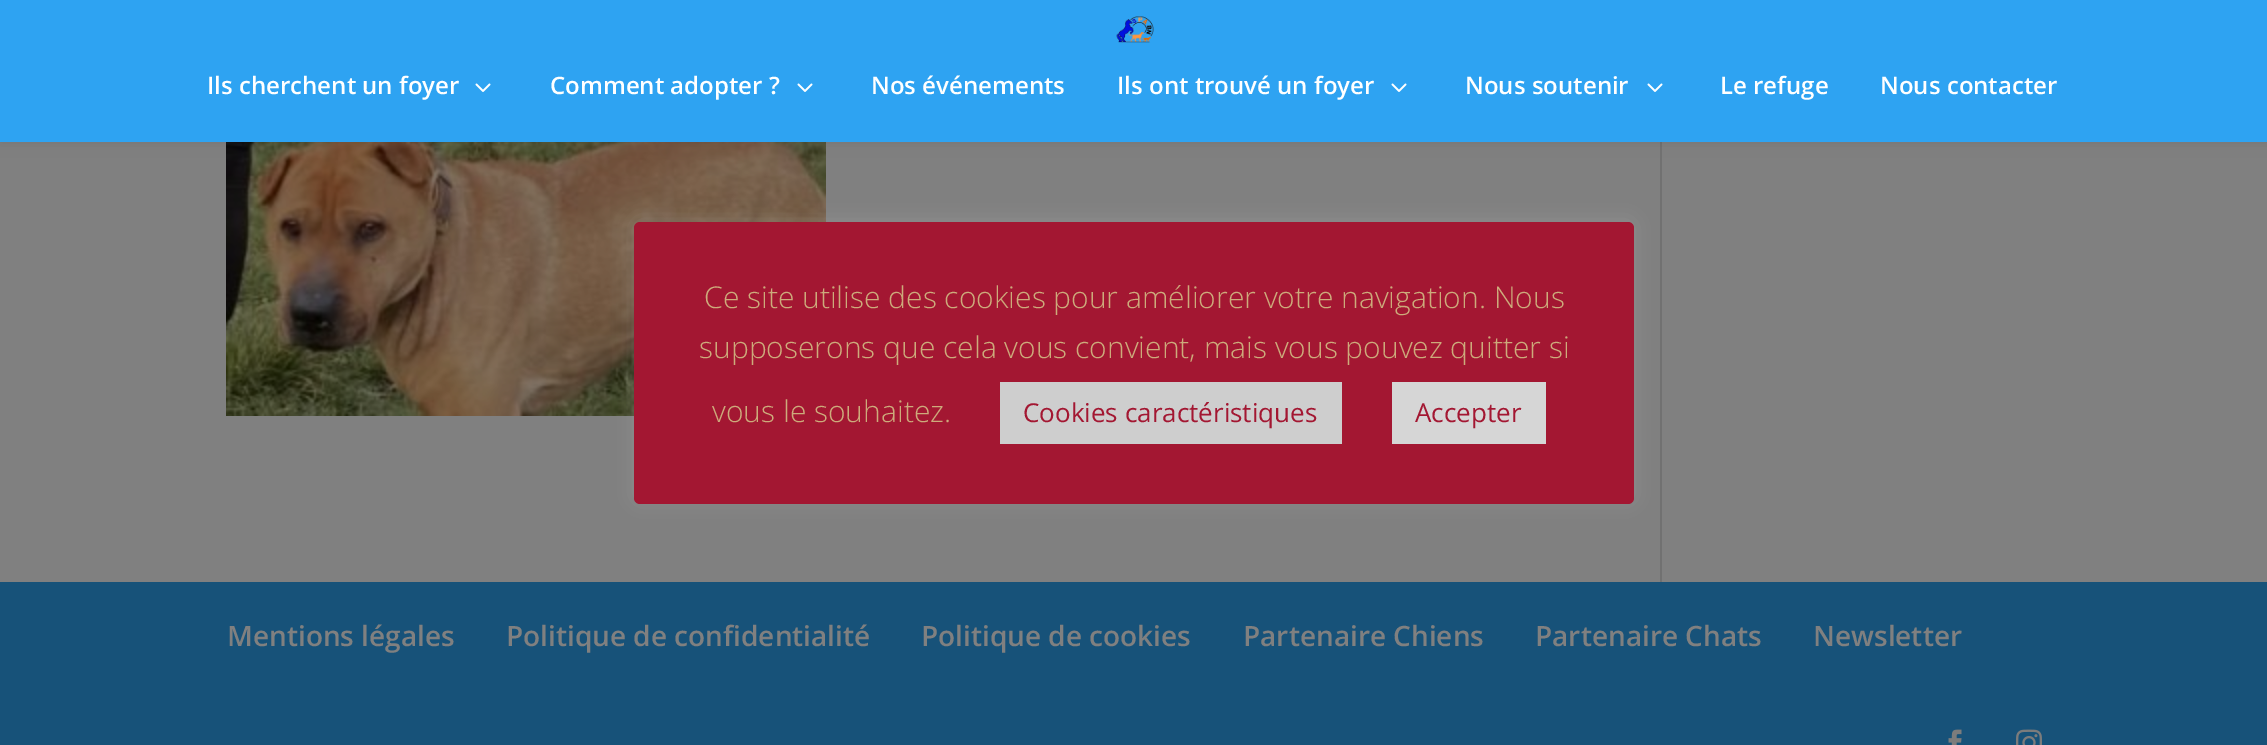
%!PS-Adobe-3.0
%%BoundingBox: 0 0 2267 745
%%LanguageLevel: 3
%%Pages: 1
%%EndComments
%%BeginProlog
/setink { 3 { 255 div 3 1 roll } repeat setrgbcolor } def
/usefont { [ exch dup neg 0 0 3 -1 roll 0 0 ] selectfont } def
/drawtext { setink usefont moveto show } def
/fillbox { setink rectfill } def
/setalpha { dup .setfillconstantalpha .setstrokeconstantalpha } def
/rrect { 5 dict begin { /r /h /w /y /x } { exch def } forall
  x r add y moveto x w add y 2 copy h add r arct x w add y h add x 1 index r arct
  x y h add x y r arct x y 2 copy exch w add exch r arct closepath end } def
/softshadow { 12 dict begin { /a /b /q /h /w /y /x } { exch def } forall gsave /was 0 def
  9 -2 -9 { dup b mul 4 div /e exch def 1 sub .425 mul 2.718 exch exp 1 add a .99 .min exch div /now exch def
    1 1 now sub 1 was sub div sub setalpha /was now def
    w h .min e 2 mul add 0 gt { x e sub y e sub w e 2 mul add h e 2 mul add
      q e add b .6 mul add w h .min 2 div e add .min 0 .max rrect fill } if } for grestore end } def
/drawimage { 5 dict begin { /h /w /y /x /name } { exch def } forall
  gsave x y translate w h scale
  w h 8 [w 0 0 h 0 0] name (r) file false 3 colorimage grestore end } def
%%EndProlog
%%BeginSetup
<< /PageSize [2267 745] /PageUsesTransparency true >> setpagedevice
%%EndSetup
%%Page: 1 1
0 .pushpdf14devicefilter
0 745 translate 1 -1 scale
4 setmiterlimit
0 0 2267 745 128 128 128 fillbox
(assets/img3.rgb) 226 142 600 274 drawimage
1660 142 2 440 113 113 113 fillbox
0 0 0 setink
0 0 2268 142 0 7 0.1 softshadow
0 0 2267 142 46 163 242 fillbox
(assets/img1.rgb) 1116 16 38 27 drawimage
(Ils cherchent un foyer) 207 94 /OpenSans-SemiBold 24 255 255 255 drawtext
(assets/img2.rgb) 475 83 16 9 drawimage
(Comment adopter ?) 550 94 /OpenSans-SemiBold 24 255 255 255 drawtext
(assets/img2.rgb) 797 83 16 9 drawimage
(Nos événements) 871 94 /OpenSans-SemiBold 24 255 255 255 drawtext
(Ils ont trouvé un foyer) 1117 94 /OpenSans-SemiBold 24 255 255 255 drawtext
(assets/img2.rgb) 1391 83 16 9 drawimage
(Nous soutenir) 1465 94 /OpenSans-SemiBold 24 255 255 255 drawtext
(assets/img2.rgb) 1647 83 16 9 drawimage
(Le refuge) 1720 94 /OpenSans-SemiBold 24 255 255 255 drawtext
(Nous contacter) 1880 94 /OpenSans-SemiBold 24 255 255 255 drawtext
0 582 2267 163 23 82 121 fillbox
(Mentions légales) 227 646 /OpenSans-SemiBold 28 128 128 128 drawtext
(Politique de confidentialité) 506 646 /OpenSans-SemiBold 28 128 128 128 drawtext
(Politique de cookies) 921 646 /OpenSans-SemiBold 28 128 128 128 drawtext
(Partenaire Chiens) 1243 646 /OpenSans-SemiBold 28 128 128 128 drawtext
(Partenaire Chats) 1535 646 /OpenSans-SemiBold 28 128 128 128 drawtext
(Newsletter) 1813 646 /OpenSans-SemiBold 28 128 128 128 drawtext
(assets/img4.rgb) 1948 729 14 16 drawimage
(assets/img5.rgb) 2016 729 26 16 drawimage
172 171 171 setink
634 220 1000 282 6 10 0.3 softshadow
163 23 50 setink
634 222 1000 282 6 rrect fill
(Ce site utilise des cookies pour améliorer votre navigation. Nous) 704 308 /OpenSans-Light 30 205 171 123 drawtext
(supposerons que cela vous convient, mais vous pouvez quitter si) 699 358 /OpenSans-Light 30 205 171 123 drawtext
(vous le souhaitez.) 712 422 /OpenSans-Light 30 205 171 123 drawtext
1000 382 342 62 206 206 206 fillbox
(Cookies caractéristiques) 1023 422 /OpenSans-Regular 26 163 23 50 drawtext
1392 382 154 62 214 214 214 fillbox
(Accepter) 1415 422 /OpenSans-Regular 26 163 23 50 drawtext
.poppdf14devicefilter showpage
%%EOF
